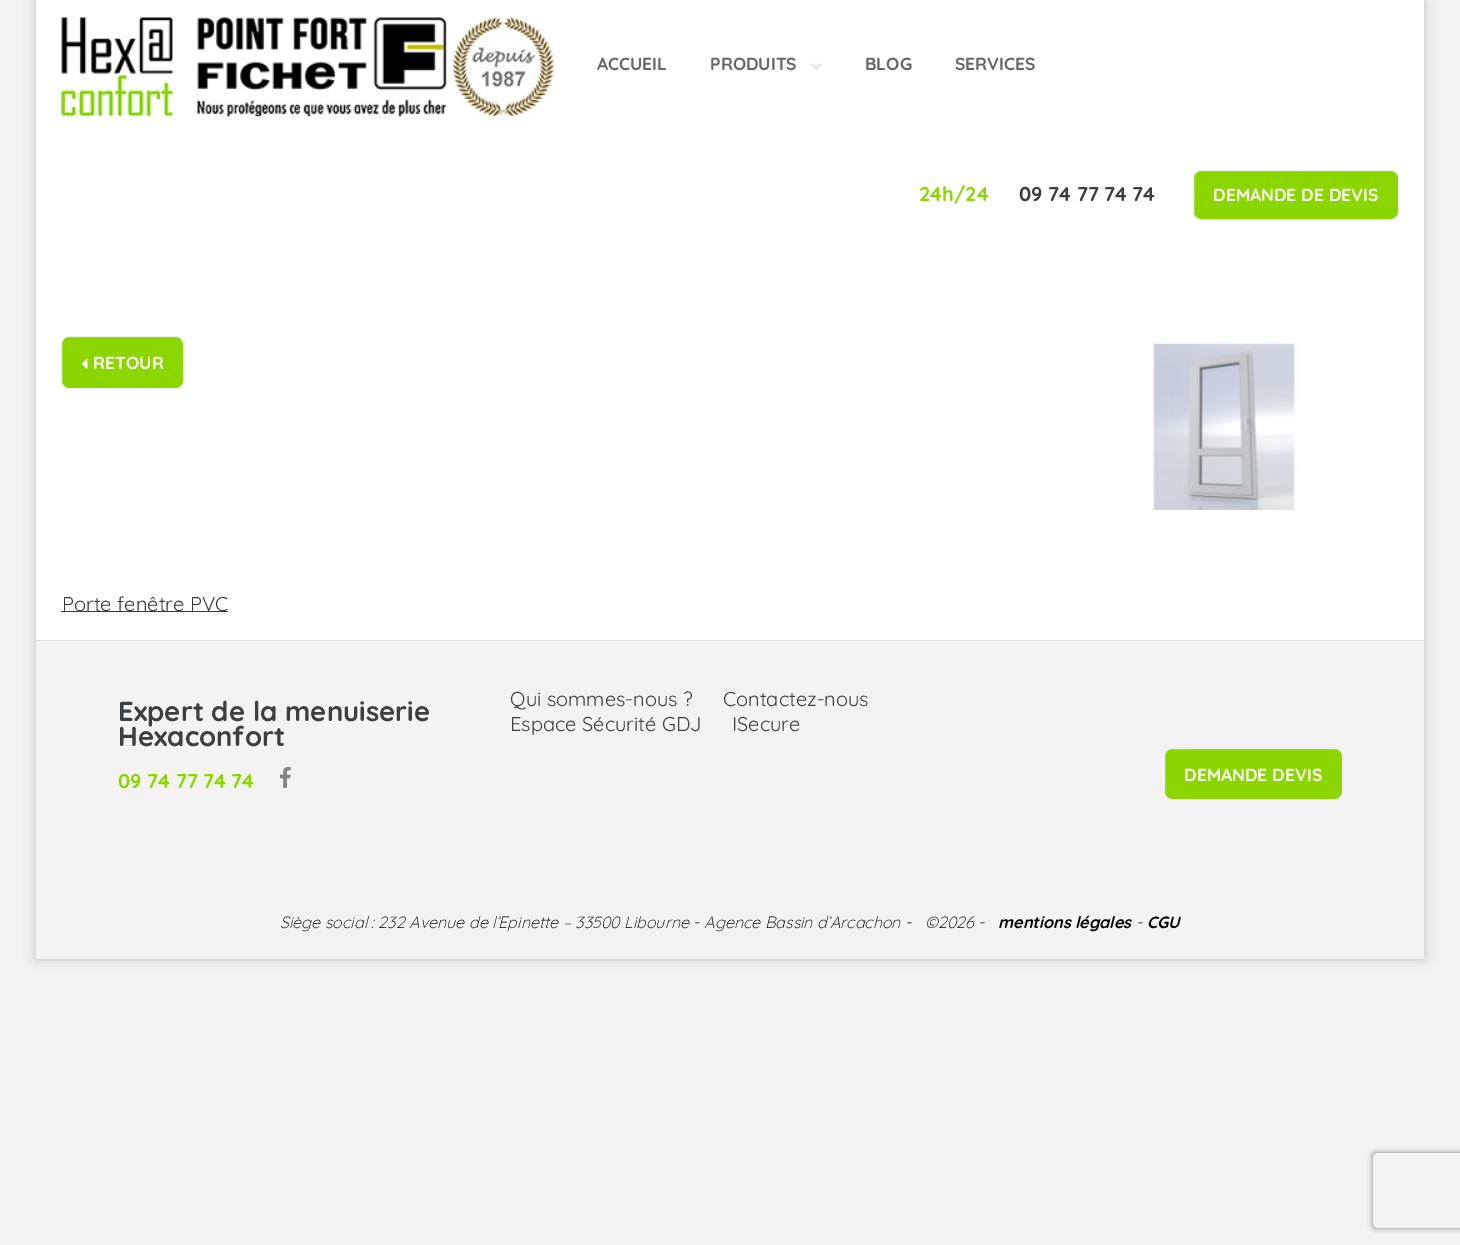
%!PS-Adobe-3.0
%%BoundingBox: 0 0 1460 1245
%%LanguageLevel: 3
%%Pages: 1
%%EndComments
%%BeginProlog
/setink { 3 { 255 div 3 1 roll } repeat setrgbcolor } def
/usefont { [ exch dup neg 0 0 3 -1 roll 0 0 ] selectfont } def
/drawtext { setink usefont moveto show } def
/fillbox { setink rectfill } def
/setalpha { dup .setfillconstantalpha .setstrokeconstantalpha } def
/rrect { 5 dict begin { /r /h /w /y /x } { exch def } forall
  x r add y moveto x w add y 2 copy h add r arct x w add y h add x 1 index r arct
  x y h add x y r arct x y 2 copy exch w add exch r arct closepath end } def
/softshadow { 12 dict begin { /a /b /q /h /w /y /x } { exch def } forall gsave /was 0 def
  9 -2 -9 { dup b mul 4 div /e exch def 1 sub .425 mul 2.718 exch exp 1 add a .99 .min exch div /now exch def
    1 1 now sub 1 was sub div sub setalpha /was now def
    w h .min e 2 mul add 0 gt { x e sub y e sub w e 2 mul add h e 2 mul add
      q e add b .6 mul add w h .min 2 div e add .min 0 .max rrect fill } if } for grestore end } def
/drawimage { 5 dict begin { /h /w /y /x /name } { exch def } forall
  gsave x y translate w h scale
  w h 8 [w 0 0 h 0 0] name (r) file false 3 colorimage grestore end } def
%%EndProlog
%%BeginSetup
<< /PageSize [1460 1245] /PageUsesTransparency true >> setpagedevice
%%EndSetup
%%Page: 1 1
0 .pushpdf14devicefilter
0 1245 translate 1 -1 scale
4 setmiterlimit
0 0 1460 1245 244 243 243 fillbox
gsave
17 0 moveto 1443 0 lineto 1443 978 lineto 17 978 lineto closepath 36 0 moveto 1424 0 lineto 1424 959 lineto 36 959 lineto closepath eoclip newpath
0 0 0 setink
36 0 1388 959 0 6 0.2 softshadow
grestore
36 0 1388 640 255 255 255 fillbox
(assets/img1.rgb) 61 17 112 100 drawimage
(assets/img2.rgb) 197 17 250 100 drawimage
(assets/img3.rgb) 452 17 102 100 drawimage
(ACCUEIL) 597 70 /Quicksand-Bold 17.5 102 102 102 drawtext
(PRODUITS) 710 70 /Quicksand-Bold 17.5 102 102 102 drawtext
(assets/img4.rgb) 810 63 12 7 drawimage
(BLOG) 865 70 /Quicksand-Bold 17.5 102 102 102 drawtext
(SERVICES) 955 70 /Quicksand-Bold 17.5 102 102 102 drawtext
(24h/24) 919 201 /Quicksand-Bold 20 140 214 0 drawtext
(09 74 77 74 74) 1019 201 /Quicksand-Bold 20 59 63 66 drawtext
140 214 0 setink
1193.5 170.5 205 49 7.5 rrect gsave fill grestore
237 237 237 setink
stroke
(DEMANDE DE DEVIS) 1213 201 /Quicksand-Bold 17.5 255 255 255 drawtext
140 214 0 setink
61.5 336.5 122 52 7.5 rrect gsave fill grestore
237 237 237 setink
stroke
(assets/img5.rgb) 81 358 7 11 drawimage
(RETOUR) 93 369 /Quicksand-Bold 17.5 255 255 255 drawtext
(assets/img6.rgb) 1153 343 144 167 drawimage
61 611 167 1 57 56 56 fillbox
(Porte fenêtre PVC) 62 611 /Quicksand-Regular 20 57 56 56 drawtext
36 640 1388 1 225 224 224 fillbox
(Expert de la menuiserie) 118 721 /Quicksand-Bold 27.5 59 63 66 drawtext
(Hexaconfort) 118 746 /Quicksand-Bold 27.5 59 63 66 drawtext
(09 74 77 74 74) 118 788 /Quicksand-Bold 20 140 214 0 drawtext
(assets/img7.rgb) 279 767 12 21 drawimage
(Qui sommes-nous ?) 510 706 /Quicksand-Regular 20 59 63 66 drawtext
(Contactez-nous) 723 706 /Quicksand-Regular 20 59 63 66 drawtext
(Espace Sécurité GDJ) 510 731 /Quicksand-Regular 20 59 63 66 drawtext
(ISecure) 732 731 /Quicksand-Regular 20 59 63 66 drawtext
140 214 0 setink
1164.5 748.5 178 51 7.5 rrect gsave fill grestore
237 237 237 setink
stroke
(DEMANDE DEVIS) 1184 781 /Quicksand-Bold 17.5 255 255 255 drawtext
(Siège social : 232 Avenue de l’Epinette – 33500 Libourne - Agence Bassin d’Arcachon -   ©2026 -) 280 928 /Quicksand-LightItalic 16.25 0 0 0 drawtext
(mentions légales) 998 928 /Quicksand-BoldItalic 16.25 0 0 0 drawtext
(-) 1136 928 /Quicksand-LightItalic 16.25 0 0 0 drawtext
(CGU) 1147 928 /Quicksand-BoldItalic 16.25 0 0 0 drawtext
gsave
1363 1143 moveto 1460 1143 lineto 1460 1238 lineto 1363 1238 lineto closepath 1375.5 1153 moveto 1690.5 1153 lineto 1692 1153 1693 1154 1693 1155.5 curveto 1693 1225.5 lineto 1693 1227 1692 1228 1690.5 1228 curveto 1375.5 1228 lineto 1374 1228 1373 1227 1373 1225.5 curveto 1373 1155.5 lineto 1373 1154 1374 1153 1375.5 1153 curveto closepath eoclip newpath
128 128 128 setink
1373 1153 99 75 2.5 3 1 softshadow
grestore
.poppdf14devicefilter showpage
%%EOF
